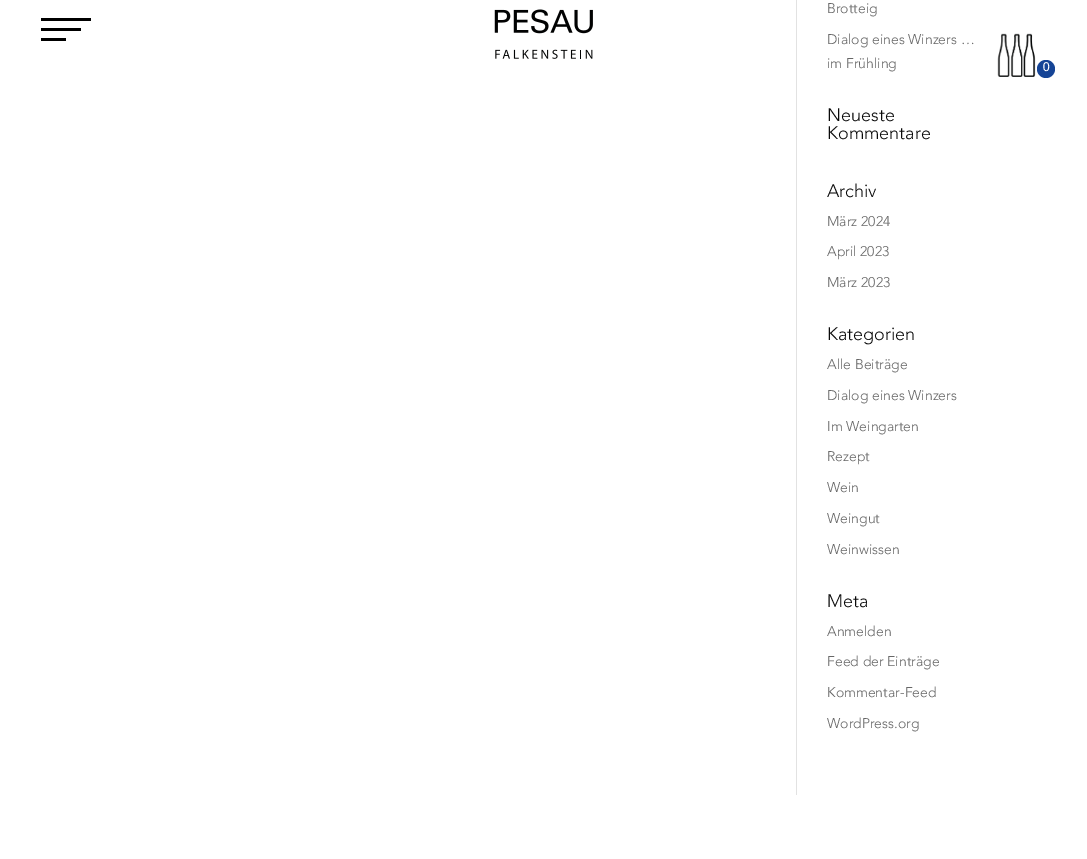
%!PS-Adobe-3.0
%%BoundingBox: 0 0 1087 859
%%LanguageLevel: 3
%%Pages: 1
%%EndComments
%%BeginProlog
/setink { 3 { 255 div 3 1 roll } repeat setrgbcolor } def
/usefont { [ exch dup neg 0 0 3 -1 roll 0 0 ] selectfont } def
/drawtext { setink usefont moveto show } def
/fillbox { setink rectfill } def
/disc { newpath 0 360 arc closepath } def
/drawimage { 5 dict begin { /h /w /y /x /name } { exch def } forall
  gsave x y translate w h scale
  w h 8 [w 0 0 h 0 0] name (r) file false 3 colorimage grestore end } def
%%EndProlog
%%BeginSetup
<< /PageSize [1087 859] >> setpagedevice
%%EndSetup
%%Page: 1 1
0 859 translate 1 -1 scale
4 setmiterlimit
0 0 1087 859 255 255 255 fillbox
796 0 1 795 226 226 226 fillbox
(Brotteig) 827 13 /Avenir-Light 14 102 102 102 drawtext
(Dialog eines Winzers …) 827 44 /Avenir-Light 14 102 102 102 drawtext
(im Frühling) 827 68 /Avenir-Light 14 102 102 102 drawtext
(Neueste) 827 121 /Avenir-Light 18 10 10 10 drawtext
(Kommentare) 827 139 /Avenir-Light 18 10 10 10 drawtext
(Archiv) 827 197 /Avenir-Light 18 10 10 10 drawtext
(März 2024) 827 226 /Avenir-Light 14 102 102 102 drawtext
(April 2023) 827 256 /Avenir-Light 14 102 102 102 drawtext
(März 2023) 827 287 /Avenir-Light 14 102 102 102 drawtext
(Kategorien) 827 340 /Avenir-Light 18 10 10 10 drawtext
(Alle Beiträge) 827 369 /Avenir-Light 14 102 102 102 drawtext
(Dialog eines Winzers) 827 400 /Avenir-Light 14 102 102 102 drawtext
(Im Weingarten) 827 431 /Avenir-Light 14 102 102 102 drawtext
(Rezept) 827 461 /Avenir-Light 14 102 102 102 drawtext
(Wein) 827 492 /Avenir-Light 14 102 102 102 drawtext
(Weingut) 827 523 /Avenir-Light 14 102 102 102 drawtext
(Weinwissen) 827 554 /Avenir-Light 14 102 102 102 drawtext
(Meta) 827 607 /Avenir-Light 18 10 10 10 drawtext
(Anmelden) 827 636 /Avenir-Light 14 102 102 102 drawtext
(Feed der Einträge) 827 666 /Avenir-Light 14 102 102 102 drawtext
(Kommentar-Feed) 827 697 /Avenir-Light 14 102 102 102 drawtext
(WordPress.org) 827 728 /Avenir-Light 14 102 102 102 drawtext
41 18 50 3 0 0 0 fillbox
41 28 40 3 0 0 0 fillbox
41 38 25 3 0 0 0 fillbox
(assets/img1.rgb) 494 9 99 50 drawimage
(assets/img2.rgb) 997 33 39 44 drawimage
21 68 150 setink
1046 69 9 disc fill
(0) 1043 71 /Avenir-Bold 12 255 255 255 drawtext
showpage
%%EOF
